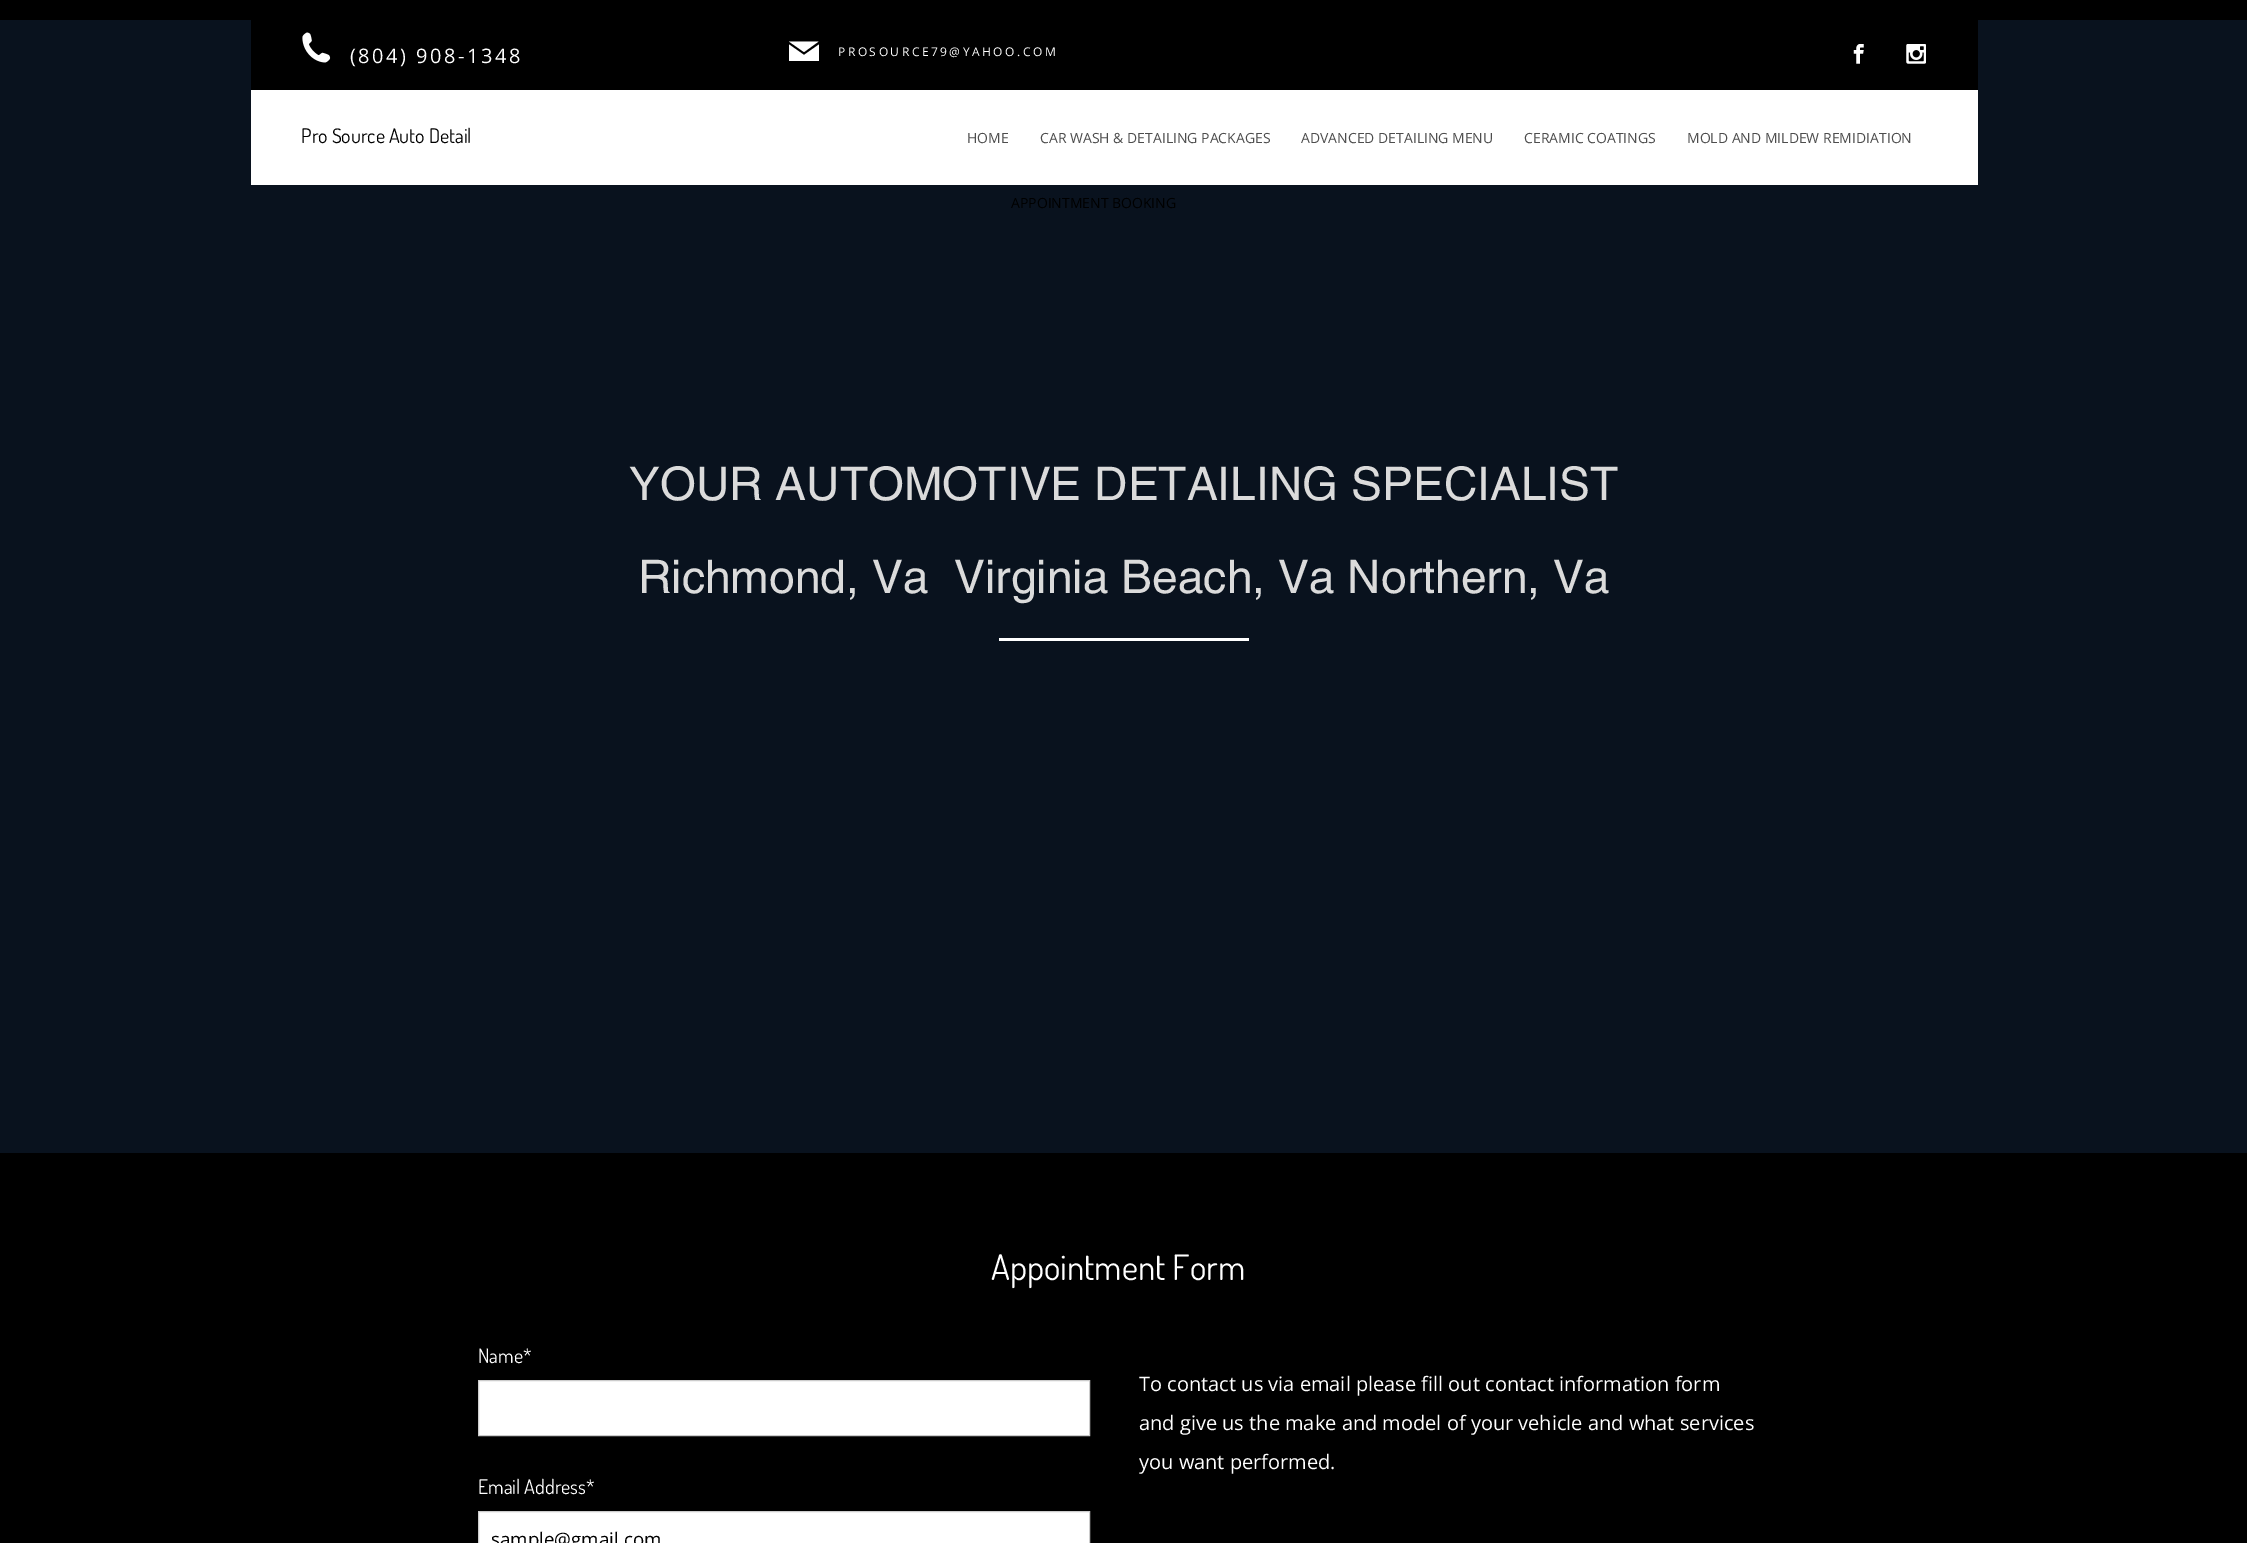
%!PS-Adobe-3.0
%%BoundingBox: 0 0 2247 1543
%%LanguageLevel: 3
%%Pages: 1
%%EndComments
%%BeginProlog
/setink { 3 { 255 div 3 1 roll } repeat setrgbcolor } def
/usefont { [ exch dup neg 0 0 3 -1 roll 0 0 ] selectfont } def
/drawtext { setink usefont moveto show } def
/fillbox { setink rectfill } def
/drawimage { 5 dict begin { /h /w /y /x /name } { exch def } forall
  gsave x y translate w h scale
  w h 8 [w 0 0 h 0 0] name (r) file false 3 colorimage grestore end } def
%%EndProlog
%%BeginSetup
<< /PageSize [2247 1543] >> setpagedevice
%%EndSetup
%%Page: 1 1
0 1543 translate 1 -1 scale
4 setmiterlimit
0 0 2247 1543 0 0 0 fillbox
0 20 2247 1133 9 18 30 fillbox
251 20 1727 70 0 0 0 fillbox
(assets/img1.rgb) 302 32 29 31 drawimage
/OpenSans-Regular 20 usefont
255 255 255 setink
350 63 moveto 2.5 0 (\(804\) 908-1348) ashow
804 55 moveto 789 44.5 lineto 789 61 lineto 819 61 lineto 819 44.5 lineto closepath fill
818.5 41.5 moveto 789 41.5 lineto 804 52 lineto closepath fill
/OpenSans-Regular 12 usefont
838 56 moveto 2.5 0 (PROSOURCE79@YAHOO.COM) ashow
(assets/img2.rgb) 1853 44 11 20 drawimage
(assets/img3.rgb) 1906 44 20 20 drawimage
251 90 1727 95 255 255 255 fillbox
(Pro Source Auto Detail) 301 143 /Dosis-Regular 20 0 0 0 drawtext
(YOUR AUTOMOTIVE DETAILING SPECIALIST) 629 500 /helvetica-Regular 46.25 219 219 219 drawtext
(Richmond, Va  Virginia Beach, Va Northern, Va) 638 593 /helvetica-Regular 46.25 219 219 219 drawtext
999 638 250 3 255 255 255 fillbox
(HOME) 967 143 /OpenSans-Regular 14 77 77 77 drawtext
(CAR WASH & DETAILING PACKAGES) 1040 143 /OpenSans-Regular 14 77 77 77 drawtext
(ADVANCED DETAILING MENU) 1301 143 /OpenSans-Regular 14 77 77 77 drawtext
(CERAMIC COATINGS) 1524 143 /OpenSans-Regular 14 77 77 77 drawtext
(MOLD AND MILDEW REMIDIATION) 1687 143 /OpenSans-Regular 14 77 77 77 drawtext
(APPOINTMENT BOOKING) 1011 208 /OpenSans-Regular 14 0 0 0 drawtext
(Appointment Form) 991 1280 /Dosis-Regular 35 255 255 255 drawtext
(Name*) 478 1363 /Dosis-Regular 20 255 255 255 drawtext
478.5 1380.5 moveto 1089.5 1380.5 lineto 1089.5 1435.5 lineto 478.5 1435.5 lineto closepath gsave fill grestore
204 204 204 setink
stroke
(Email Address*) 478 1494 /Dosis-Regular 20 255 255 255 drawtext
478.5 1511.5 moveto 1089.5 1511.5 lineto 1089.5 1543.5 lineto 478.5 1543.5 lineto closepath gsave fill grestore
204 204 204 setink
stroke
(sample@gmail.com) 491 1546 /OpenSans-Regular 18.75 0 0 0 drawtext
(To contact us via email please fill out contact information form) 1139 1391 /OpenSans-Regular 20 255 255 255 drawtext
(and give us the make and model of your vehicle and what services) 1139 1430 /OpenSans-Regular 20 255 255 255 drawtext
(you want performed.) 1139 1469 /OpenSans-Regular 20 255 255 255 drawtext
showpage
%%EOF
